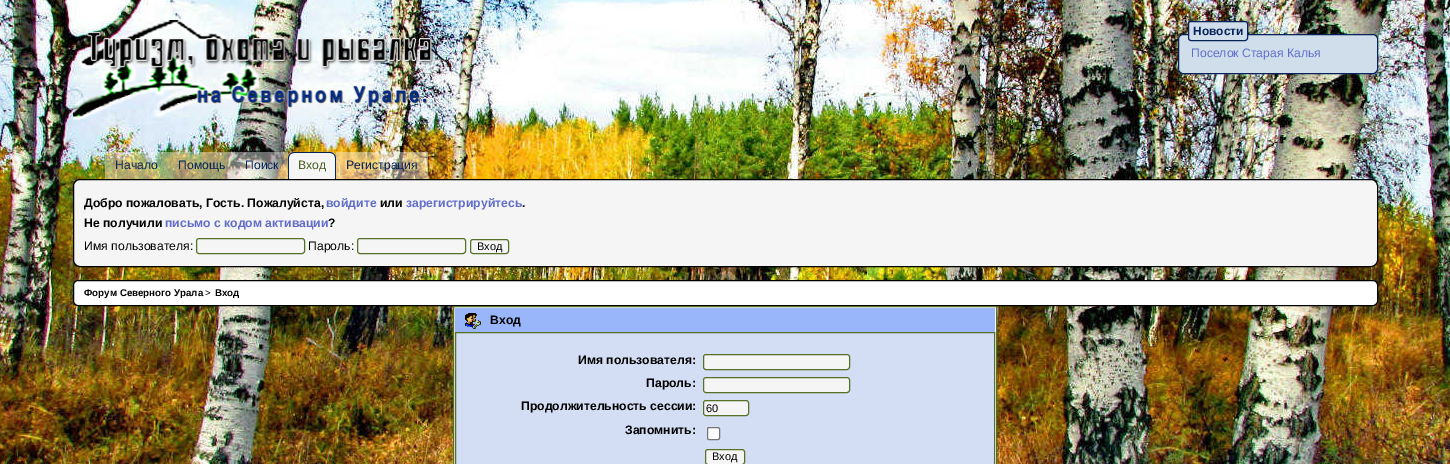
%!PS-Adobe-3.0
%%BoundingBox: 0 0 1450 464
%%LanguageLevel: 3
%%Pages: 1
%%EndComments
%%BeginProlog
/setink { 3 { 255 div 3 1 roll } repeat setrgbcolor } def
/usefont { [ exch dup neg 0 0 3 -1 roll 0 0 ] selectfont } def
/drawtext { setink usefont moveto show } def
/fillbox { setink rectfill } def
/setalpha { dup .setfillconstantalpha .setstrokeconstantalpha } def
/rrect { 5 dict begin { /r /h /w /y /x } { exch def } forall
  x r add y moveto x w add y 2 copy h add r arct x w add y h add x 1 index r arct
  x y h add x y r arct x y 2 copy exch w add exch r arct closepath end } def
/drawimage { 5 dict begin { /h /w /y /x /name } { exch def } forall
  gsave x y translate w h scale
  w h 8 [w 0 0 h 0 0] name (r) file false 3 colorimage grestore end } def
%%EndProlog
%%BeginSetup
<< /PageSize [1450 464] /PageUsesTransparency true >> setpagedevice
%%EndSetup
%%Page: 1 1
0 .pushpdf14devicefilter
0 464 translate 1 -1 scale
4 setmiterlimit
0 0 1450 464 255 255 255 fillbox
(assets/img1.rgb) 0 0 1450 464 drawimage
(assets/img2.rgb) 73 20 362 100 drawimage
208 222 235 setink
1178.5 34.5 199 39 4.5 rrect gsave fill grestore
7 35 90 setink
stroke
208 222 235 setink
1188.5 21.5 59 19 2.5 rrect gsave fill grestore
7 35 90 setink
stroke
(Новости) 1193 35 /LiberationSans-Bold 12 7 35 90 drawtext
(Поселок Старая Калья) 1191 57 /LiberationSans-Regular 12.2 97 109 201 drawtext
0.43 setalpha
105 152 63 27 245 245 245 fillbox
1 setalpha
(Начало) 115 169 /LiberationSans-Regular 12.2 7 35 90 drawtext
0.43 setalpha
168 152 67 27 245 245 245 fillbox
1 setalpha
(Помощь) 178 169 /LiberationSans-Regular 12.2 7 35 90 drawtext
0.43 setalpha
235 152 53 27 245 245 245 fillbox
1 setalpha
(Поиск) 245 169 /LiberationSans-Regular 12.2 7 35 90 drawtext
245 245 245 setink
294 152 moveto 330 152 lineto 333.5 152 336 154.5 336 158 curveto 336 180 lineto 288 180 lineto 288 158 lineto 288 154.5 290.5 152 294 152 curveto closepath fill
7 35 90 setink
294 152 moveto 330 152 lineto 333 152 336 155 336 158 curveto 336 180 lineto 288 180 lineto 288 158 lineto 288 155 291 152 294 152 curveto closepath 294 153 moveto 330 153 lineto 333 153 335 155 335 158 curveto 335 180 lineto 289 180 lineto 289 158 lineto 289 155 291 153 294 153 curveto closepath eofill
(Вход) 298 169 /LiberationSans-Regular 12.2 73 94 32 drawtext
0.43 setalpha
336 152 92 27 245 245 245 fillbox
1 setalpha
(Регистрация) 346 169 /LiberationSans-Regular 12.2 7 35 90 drawtext
245 245 245 setink
73.5 179.5 1304 87 6.5 rrect gsave fill grestore
0 0 0 setink
stroke
(Добро пожаловать, Гость. Пожалуйста,) 84 207 /LiberationSans-Bold 12.2 0 0 0 drawtext
(войдите) 326 207 /LiberationSans-Bold 12.2 97 109 201 drawtext
(или) 380 207 /LiberationSans-Bold 12.2 0 0 0 drawtext
(зарегистрируйтесь) 406 207 /LiberationSans-Bold 12.2 97 109 201 drawtext
(.) 522 207 /LiberationSans-Bold 12.2 0 0 0 drawtext
(Не получили) 84 227 /LiberationSans-Bold 12.2 0 0 0 drawtext
(письмо с кодом активации) 165 227 /LiberationSans-Bold 12.2 97 109 201 drawtext
(?) 328 227 /LiberationSans-Bold 12.2 0 0 0 drawtext
(Имя пользователя:) 84 250 /LiberationSans-Regular 12.2 0 0 0 drawtext
87 112 40 setink
196.5 238.5 108 15 2.5 rrect stroke
(Пароль:) 308 250 /LiberationSans-Regular 12.2 0 0 0 drawtext
87 112 40 setink
357.5 238.5 108 15 2.5 rrect stroke
470.5 239.5 38 14 2.5 rrect stroke
(Вход) 477 250 /LiberationSans-Regular 11 0 0 0 drawtext
255 255 255 setink
73.5 280.5 1304 25 4.5 rrect gsave fill grestore
0 0 0 setink
stroke
(Форум Северного Урала) 84 296 /LiberationSans-Bold 9.75 0 0 0 drawtext
(>) 205 296 /LiberationSans-Regular 9.75 0 0 0 drawtext
(Вход) 215 296 /LiberationSans-Bold 9.75 0 0 0 drawtext
255 255 255 setink
453.5 306.5 moveto 996.5 306.5 lineto 996.5 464.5 lineto 453.5 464.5 lineto closepath gsave fill grestore
87 112 40 setink
stroke
455 308 540 24 153 182 250 fillbox
(assets/img3.rgb) 465 313 16 16 drawimage
(Вход) 490 324 /LiberationSans-Bold 12.2 0 0 0 drawtext
211 221 243 setink
455.5 332.5 moveto 994.5 332.5 lineto 994.5 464.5 lineto 455.5 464.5 lineto closepath gsave fill grestore
87 112 40 setink
stroke
(Имя пользователя:) 578 364 /LiberationSans-Bold 12.2 0 0 0 drawtext
245 245 245 setink
703.5 354.5 146 15 2.5 rrect gsave fill grestore
87 112 40 setink
stroke
(Пароль:) 646 387 /LiberationSans-Bold 12.2 0 0 0 drawtext
245 245 245 setink
703.5 377.5 146 15 2.5 rrect gsave fill grestore
87 112 40 setink
stroke
(Продолжительность сессии:) 521 410 /LiberationSans-Bold 12.2 0 0 0 drawtext
245 245 245 setink
703.5 400.5 45 15 2.5 rrect gsave fill grestore
87 112 40 setink
stroke
(60) 706 412 /LiberationSans-Regular 11 0 0 0 drawtext
(Запомнить:) 625 434 /LiberationSans-Bold 12.2 0 0 0 drawtext
255 255 255 setink
707.5 427.5 12 12 1.5 rrect gsave fill grestore
118 118 118 setink
stroke
245 245 245 setink
705.5 449.5 39 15 2.5 rrect gsave fill grestore
87 112 40 setink
stroke
(Вход) 712 460 /LiberationSans-Regular 11 0 0 0 drawtext
.poppdf14devicefilter showpage
%%EOF
